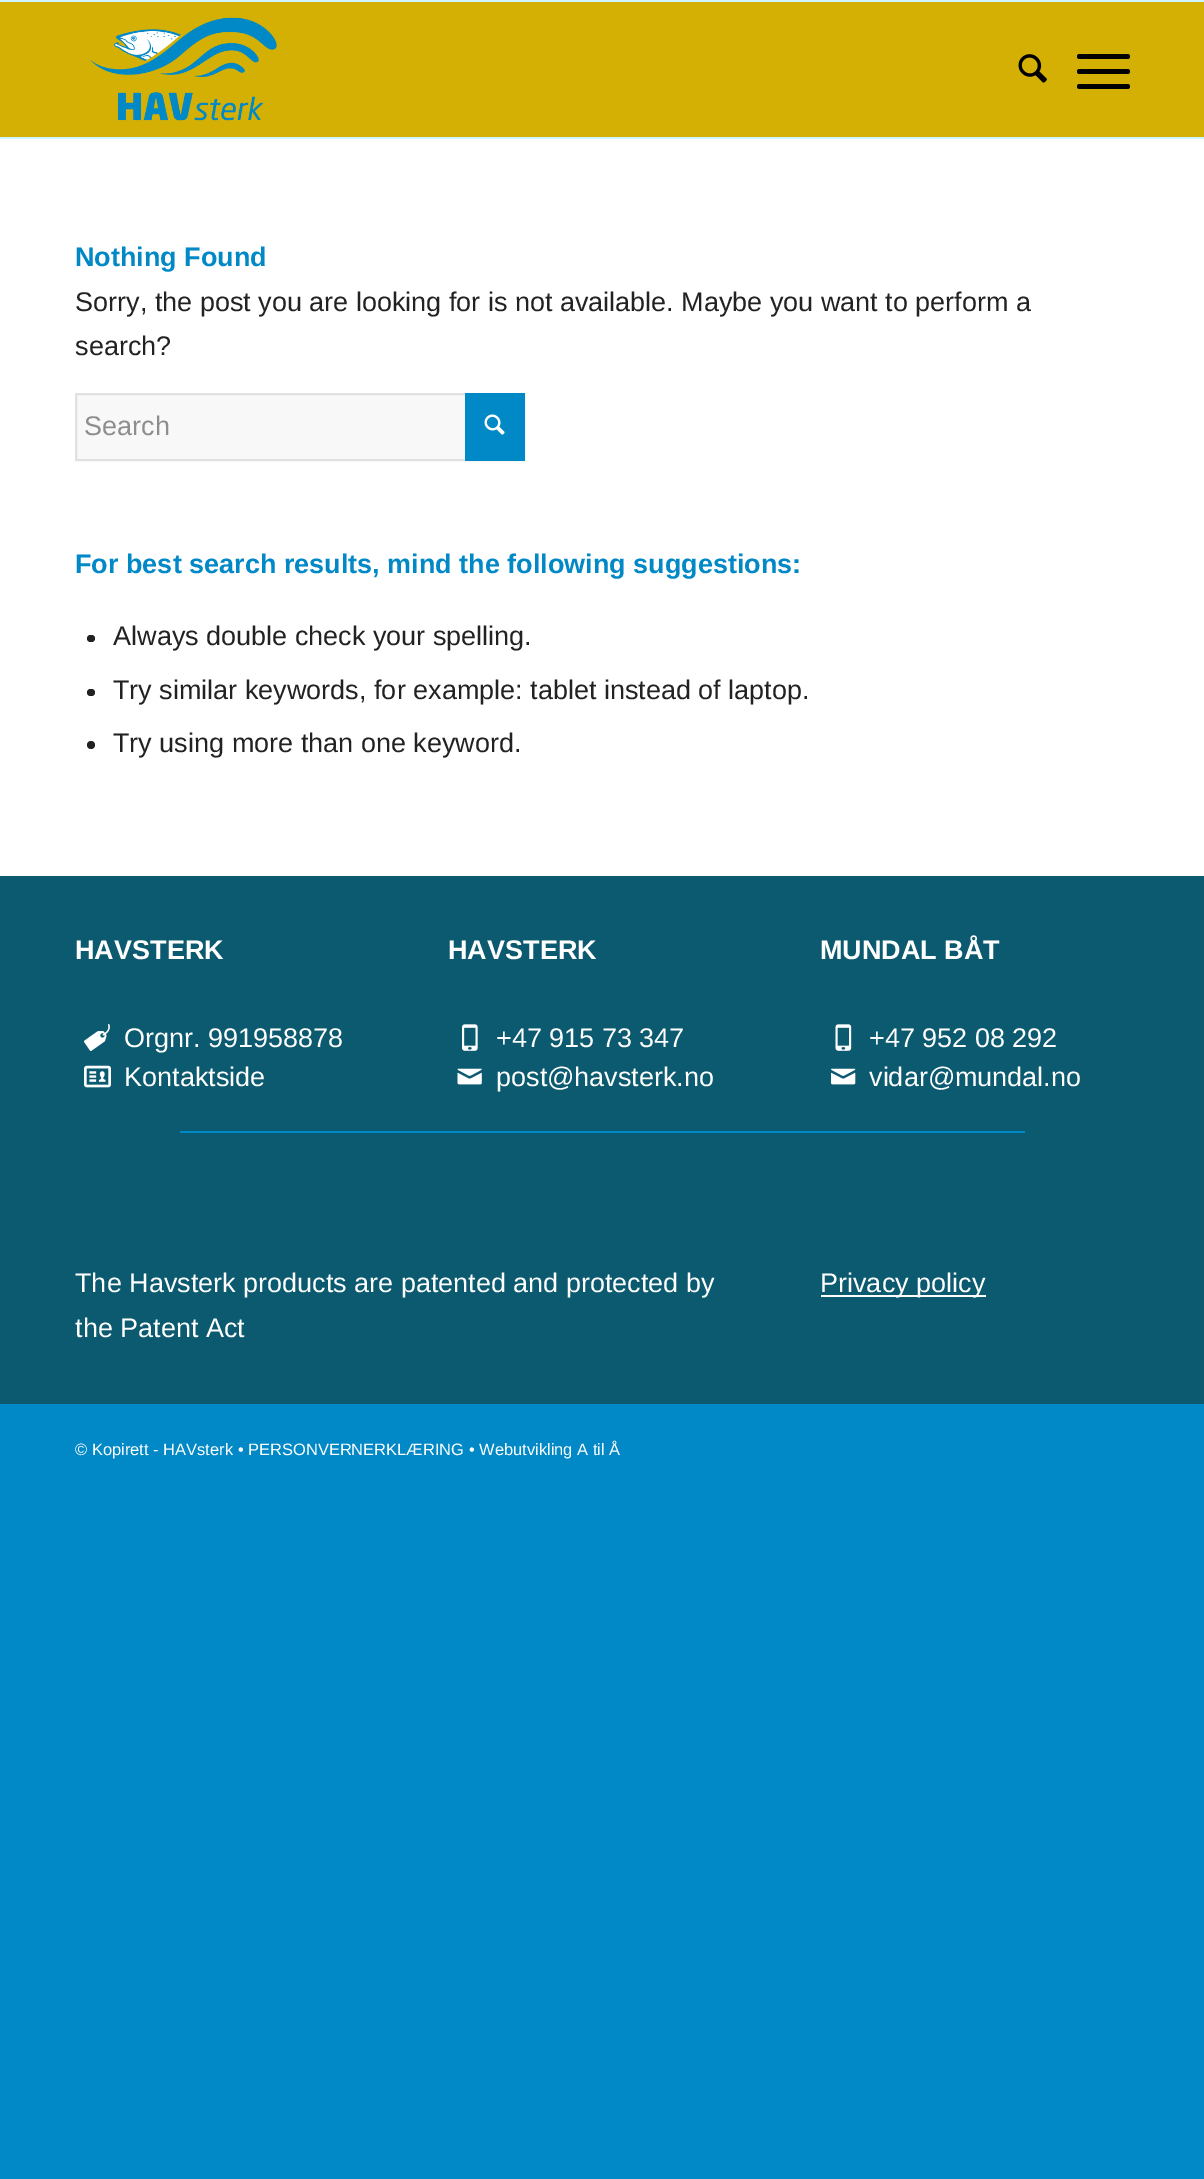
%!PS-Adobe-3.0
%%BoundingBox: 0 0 1204 2179
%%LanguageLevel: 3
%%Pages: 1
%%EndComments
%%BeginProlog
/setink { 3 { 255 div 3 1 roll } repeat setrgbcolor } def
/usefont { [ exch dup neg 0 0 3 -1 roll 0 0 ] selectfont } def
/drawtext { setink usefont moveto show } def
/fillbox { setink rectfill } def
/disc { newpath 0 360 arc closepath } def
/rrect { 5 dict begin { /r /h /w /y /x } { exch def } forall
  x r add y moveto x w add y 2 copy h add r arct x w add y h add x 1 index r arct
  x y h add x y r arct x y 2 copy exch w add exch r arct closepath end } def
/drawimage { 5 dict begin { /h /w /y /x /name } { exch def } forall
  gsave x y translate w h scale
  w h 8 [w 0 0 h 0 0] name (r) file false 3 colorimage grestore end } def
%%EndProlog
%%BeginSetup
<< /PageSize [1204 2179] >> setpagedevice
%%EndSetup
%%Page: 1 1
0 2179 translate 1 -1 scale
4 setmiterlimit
0 0 1204 2179 0 137 198 fillbox
0 0 1204 2 209 245 255 fillbox
0 137 1204 2 209 245 255 fillbox
0 2 1204 135 211 176 3 fillbox
(assets/img1.rgb) 89 17 188 104 drawimage
(assets/img2.rgb) 1018 54 29 29 drawimage
0 0 0 setink
1077 69 53 5 2.5 rrect fill
1077 54 53 5 2.5 rrect fill
1077 84 53 5 2.5 rrect fill
0 139 1204 737 255 255 255 fillbox
(Nothing Found) 75 266 /LiberationSans-Bold 27 0 137 198 drawtext
(Sorry, the post you are looking for is not available. Maybe you want to perform a) 75 311 /LiberationSans-Regular 27 34 34 34 drawtext
(search?) 75 355 /LiberationSans-Regular 27 34 34 34 drawtext
77 395 388 64 248 248 248 fillbox
225 225 225 setink
2 setlinewidth
76 394 448 66 rectstroke
(Search) 84 435 /LiberationSans-Regular 27 141 141 141 drawtext
465 393 60 68 0 137 198 fillbox
(assets/img3.rgb) 484 414 21 21 drawimage
(For best search results, mind the following suggestions:) 75 573 /LiberationSans-Bold 27 0 137 198 drawtext
34 34 34 setink
87 635 8 7 3.5 rrect fill
(Always double check your spelling.) 113 645 /LiberationSans-Regular 27 34 34 34 drawtext
87 689 8 7 3.5 rrect fill
(Try similar keywords, for example: tablet instead of laptop.) 113 699 /LiberationSans-Regular 27 34 34 34 drawtext
91 745 4 disc fill
(Try using more than one keyword.) 113 752 /LiberationSans-Regular 27 34 34 34 drawtext
0 876 1204 528 11 90 112 fillbox
(HAVSTERK) 75 959 /LiberationSans-Bold 27 255 255 255 drawtext
(assets/img4.rgb) 84 1024 26 27 drawimage
(Orgnr. 991958878) 124 1047 /LiberationSans-Regular 27 255 255 255 drawtext
(assets/img5.rgb) 84 1065 27 23 drawimage
(Kontaktside) 124 1086 /LiberationSans-Regular 27 255 255 255 drawtext
(HAVSTERK) 448 959 /LiberationSans-Bold 27 255 255 255 drawtext
(assets/img6.rgb) 462 1024 16 27 drawimage
(+47 915 73 347) 496 1047 /LiberationSans-Regular 27 255 255 255 drawtext
(assets/img7.rgb) 457 1068 25 17 drawimage
(post@havsterk.no) 496 1086 /LiberationSans-Regular 27 255 255 255 drawtext
(MUNDAL BÅT) 820 959 /LiberationSans-Bold 27 255 255 255 drawtext
(assets/img8.rgb) 835 1024 17 27 drawimage
(+47 952 08 292) 869 1047 /LiberationSans-Regular 27 255 255 255 drawtext
(assets/img9.rgb) 831 1068 25 17 drawimage
(vidar@mundal.no) 869 1086 /LiberationSans-Regular 27 255 255 255 drawtext
180 1131 845 2 0 137 198 fillbox
(The Havsterk products are patented and protected by) 75 1292 /LiberationSans-Regular 27 255 255 255 drawtext
(the Patent Act) 75 1337 /LiberationSans-Regular 27 255 255 255 drawtext
821 1295 165 2 255 255 255 fillbox
(Privacy policy) 820 1292 /LiberationSans-Regular 27 255 255 255 drawtext
(© Kopirett - HAVsterk • PERSONVERNERKLÆRING • Webutvikling A til Å) 75 1455 /LiberationSans-Regular 16.5 255 255 255 drawtext
showpage
%%EOF
